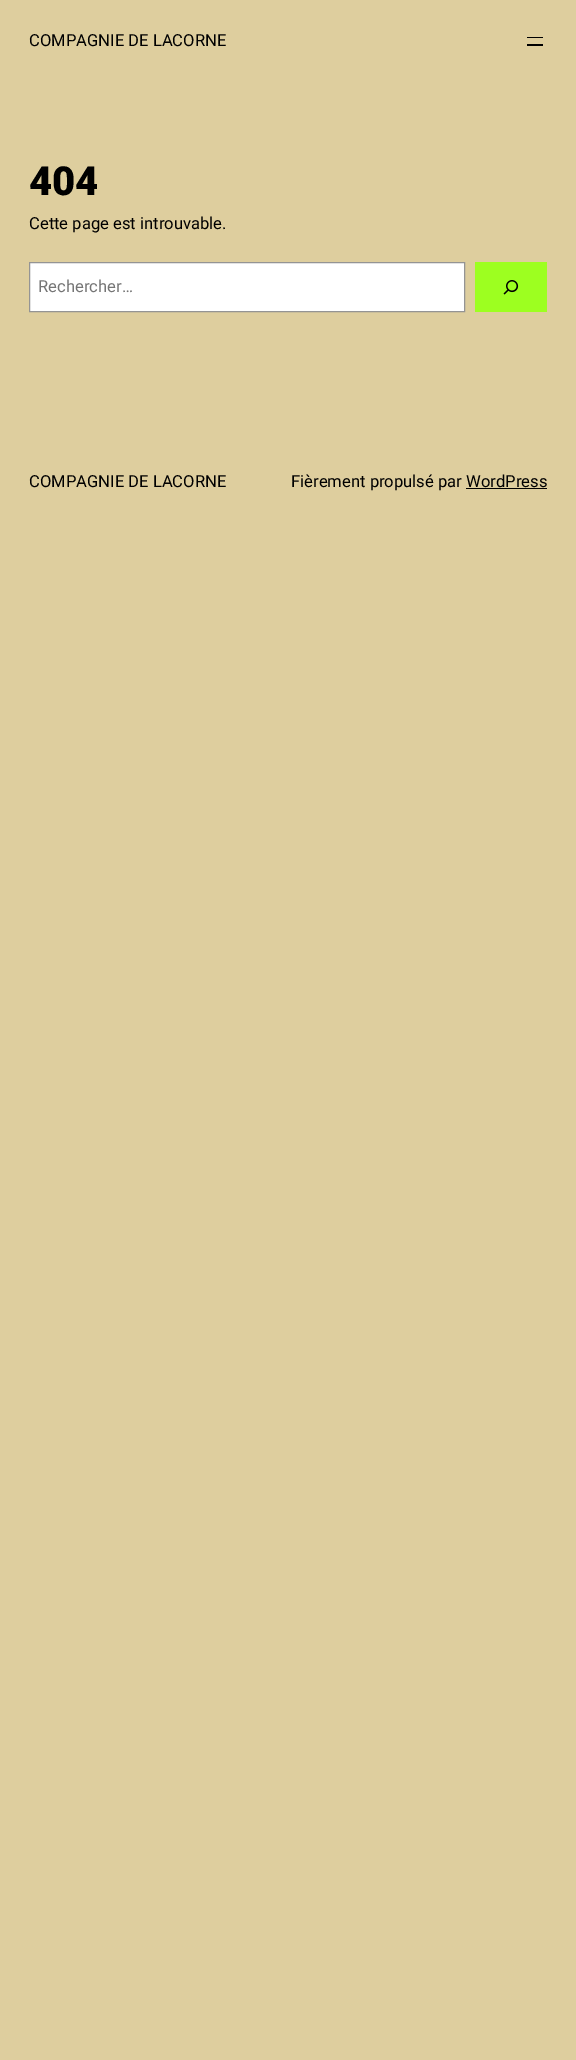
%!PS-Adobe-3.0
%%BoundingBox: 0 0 576 2060
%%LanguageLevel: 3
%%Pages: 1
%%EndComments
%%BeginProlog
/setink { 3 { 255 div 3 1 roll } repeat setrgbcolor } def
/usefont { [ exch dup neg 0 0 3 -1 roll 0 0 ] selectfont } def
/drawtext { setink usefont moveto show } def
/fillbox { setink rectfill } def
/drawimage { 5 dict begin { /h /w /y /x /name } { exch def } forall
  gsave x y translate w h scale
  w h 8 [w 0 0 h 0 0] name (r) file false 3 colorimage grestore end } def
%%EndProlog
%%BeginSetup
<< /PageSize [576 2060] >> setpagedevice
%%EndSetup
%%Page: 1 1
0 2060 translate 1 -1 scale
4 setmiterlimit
0 0 576 2060 222 206 158 fillbox
(COMPAGNIE DE LACORNE) 29 46 /Roboto-Regular 16.6 0 0 0 drawtext
527 37 16 1 0 0 0 fillbox
527 44 16 2 0 0 0 fillbox
(404) 29 195 /Roboto-Black 40 0 0 0 drawtext
(Cette page est introuvable.) 29 229 /Roboto-Regular 16.6 0 0 0 drawtext
255 255 255 setink
29.5 262.5 moveto 464.5 262.5 lineto 464.5 311.5 lineto 29.5 311.5 lineto closepath gsave fill grestore
148 148 148 setink
stroke
(Rechercher…) 38 292 /Roboto-Regular 16.6 117 117 117 drawtext
475 262 72 50 157 255 32 fillbox
(assets/img1.rgb) 503 280 16 15 drawimage
(COMPAGNIE DE LACORNE) 29 487 /Roboto-Regular 16.6 0 0 0 drawtext
(Fièrement propulsé par WordPress) 291 487 /Roboto-Regular 16.6 0 0 0 drawtext
466 488 81 1 0 0 0 fillbox
showpage
%%EOF
